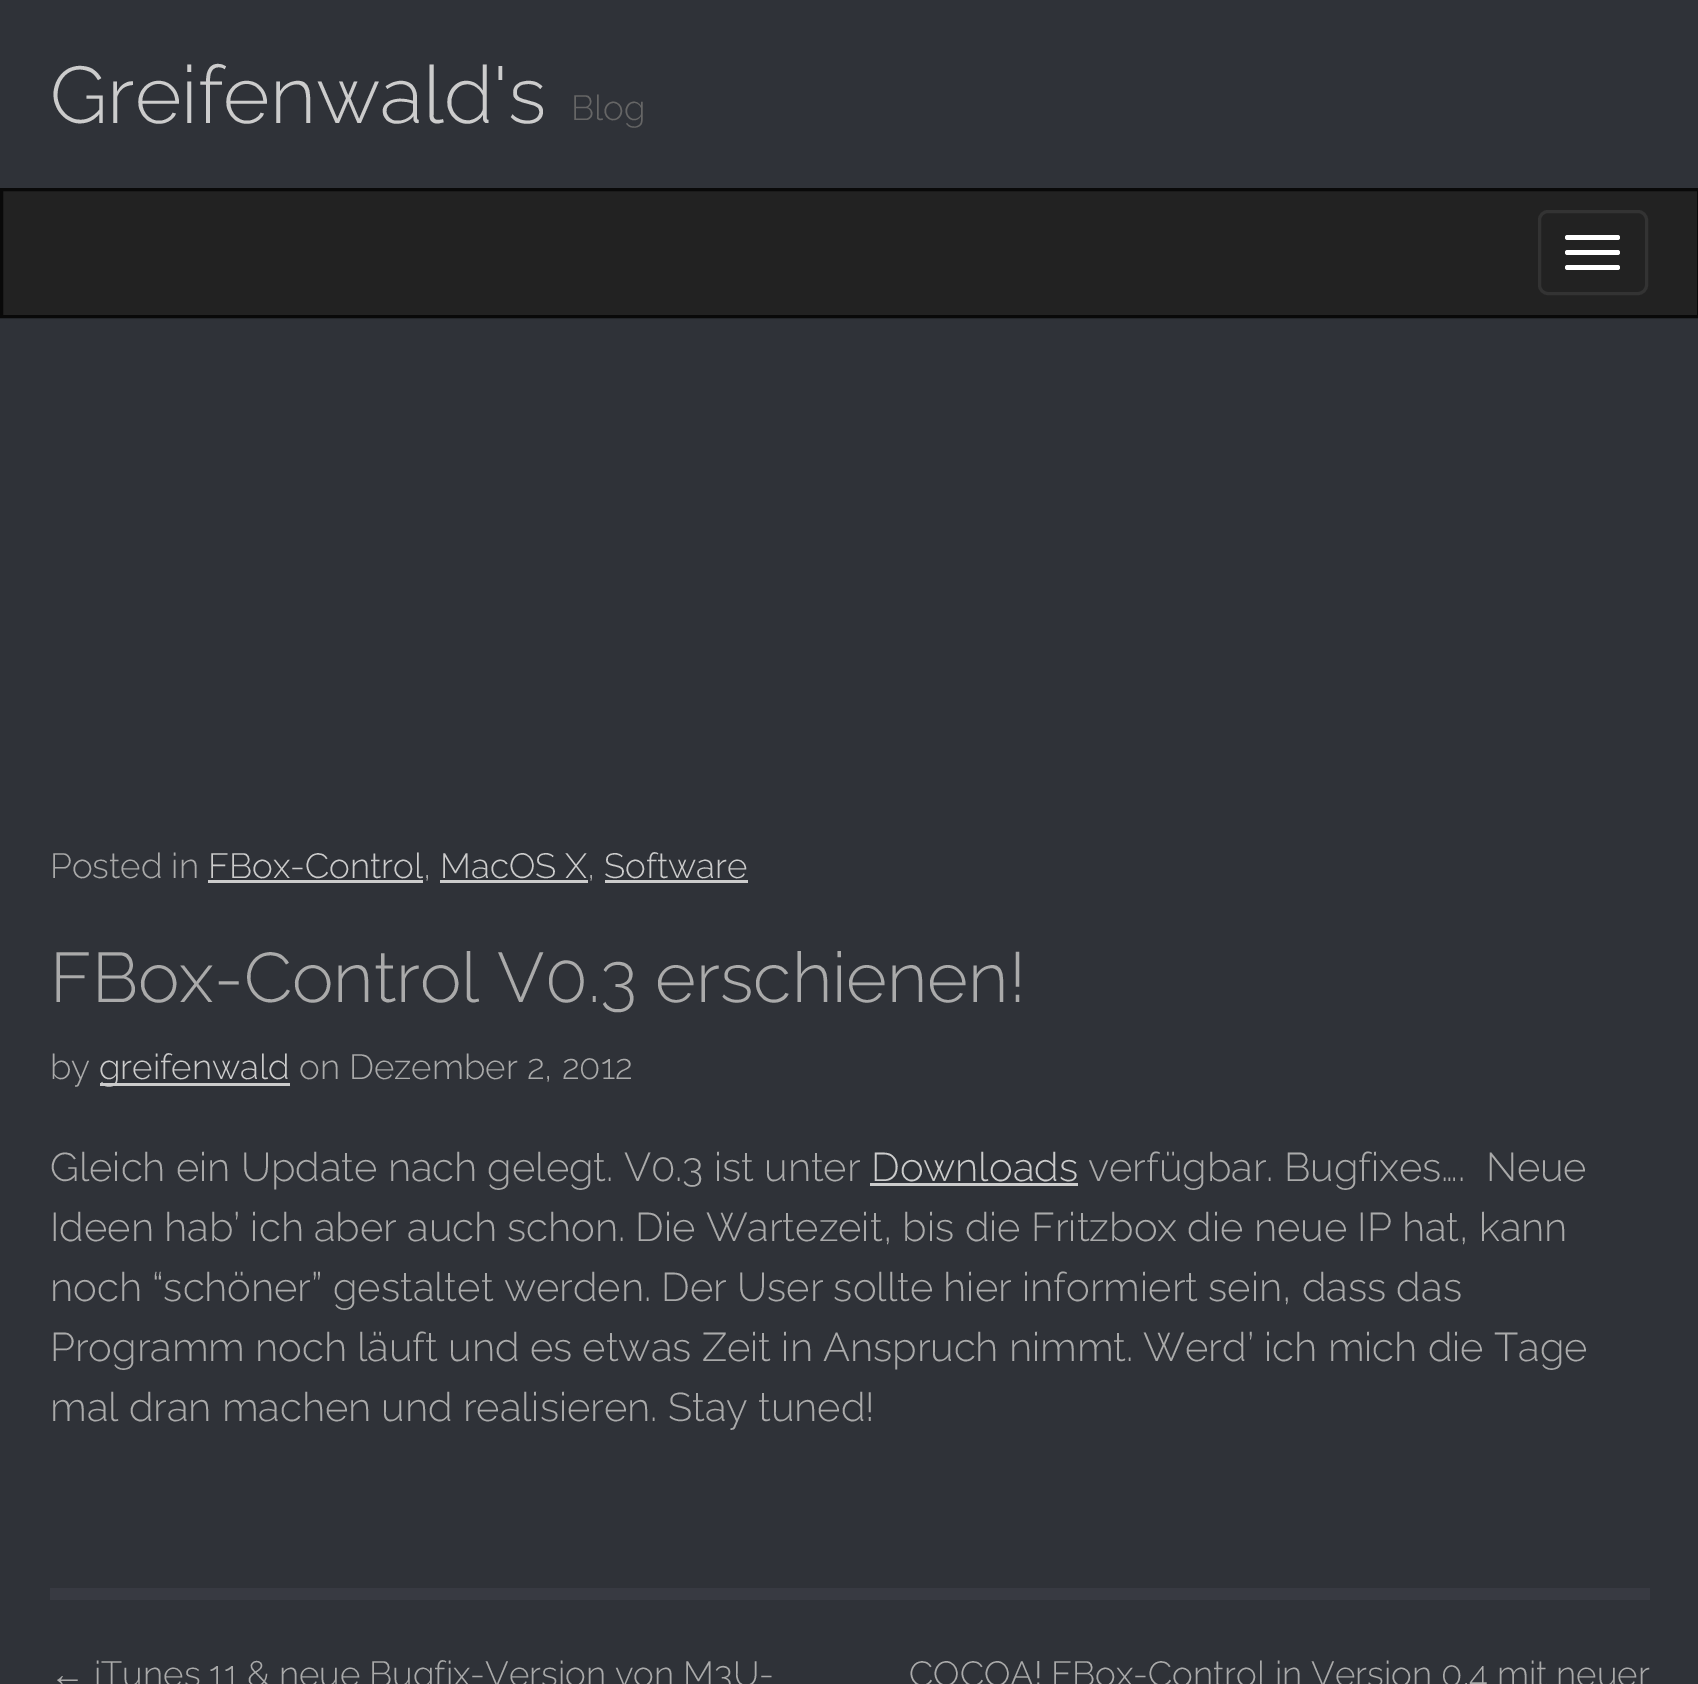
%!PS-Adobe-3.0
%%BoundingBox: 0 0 1698 1684
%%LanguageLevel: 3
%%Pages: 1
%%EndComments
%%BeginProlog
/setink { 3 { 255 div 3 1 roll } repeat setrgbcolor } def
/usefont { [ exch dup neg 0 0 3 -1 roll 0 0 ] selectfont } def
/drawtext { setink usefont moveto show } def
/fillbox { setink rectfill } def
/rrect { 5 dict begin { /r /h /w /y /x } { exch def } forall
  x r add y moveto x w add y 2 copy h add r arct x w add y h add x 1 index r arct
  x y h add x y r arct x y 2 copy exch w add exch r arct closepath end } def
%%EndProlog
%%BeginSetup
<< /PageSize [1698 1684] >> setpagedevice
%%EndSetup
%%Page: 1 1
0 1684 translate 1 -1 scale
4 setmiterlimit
0 0 1698 1684 47 50 56 fillbox
(Greifenwald's) 50 123 /Raleway-Light 80 204 204 204 drawtext
(Blog) 571 120 /Raleway-Light 35 102 102 102 drawtext
34 34 34 setink
1.5 189.5 moveto 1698.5 189.5 lineto 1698.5 316.5 lineto 1.5 316.5 lineto closepath gsave fill grestore
9 9 9 setink
3 setlinewidth
stroke
51 51 51 setink
1539.5 211.5 107 82 8.5 rrect stroke
255 255 255 setink
1565 235 55 5 2.5 rrect fill
1565 250 55 5 2.5 rrect fill
1565 265 55 5 2.5 rrect fill
(Posted in) 50 878 /Raleway-Light 35 170 170 170 drawtext
(FBox-Control) 208 878 /Raleway-Light 35 204 204 204 drawtext
208 880 215 3 204 204 204 fillbox
(,) 423 878 /Raleway-Light 35 170 170 170 drawtext
(MacOS X) 440 878 /Raleway-Light 35 204 204 204 drawtext
440 880 148 3 204 204 204 fillbox
(,) 587 878 /Raleway-Light 35 170 170 170 drawtext
(Software) 604 878 /Raleway-Light 35 204 204 204 drawtext
605 880 143 3 204 204 204 fillbox
(FBox-Control V0.3 erschienen!) 50 1002 /Raleway-Light 70 170 170 170 drawtext
(by) 50 1079 /Raleway-Light 35 170 170 170 drawtext
100 1083 190 3 204 204 204 fillbox
(greifenwald) 99 1079 /Raleway-Light 35 204 204 204 drawtext
(on Dezember 2, 2012) 299 1079 /Raleway-Light 35 170 170 170 drawtext
(Gleich ein Update nach gelegt. V0.3 ist unter) 50 1181 /Raleway-Light 40 170 170 170 drawtext
(Downloads) 871 1181 /Raleway-Light 40 204 204 204 drawtext
870 1183 208 3 204 204 204 fillbox
(verfügbar. Bugfixes….  Neue) 1088 1181 /Raleway-Light 40 170 170 170 drawtext
(Ideen hab’ ich aber auch schon. Die Wartezeit, bis die Fritzbox die neue IP hat, kann) 50 1241 /Raleway-Light 40 170 170 170 drawtext
(noch “schöner” gestaltet werden. Der User sollte hier informiert sein, dass das) 50 1301 /Raleway-Light 40 170 170 170 drawtext
(Programm noch läuft und es etwas Zeit in Anspruch nimmt. Werd’ ich mich die Tage) 50 1361 /Raleway-Light 40 170 170 170 drawtext
(mal dran machen und realisieren. Stay tuned!) 50 1421 /Raleway-Light 40 170 170 170 drawtext
50 1588 1600 12 56 58 66 fillbox
(←) 50 1686 /LiberationSans-Regular 35 170 170 170 drawtext
(iTunes 11 & neue Bugfix-Version von M3U-) 94 1686 /Raleway-Light 35 170 170 170 drawtext
(COCOA! FBox-Control in Version 0.4 mit neuer) 909 1686 /Raleway-Light 35 170 170 170 drawtext
showpage
%%EOF
